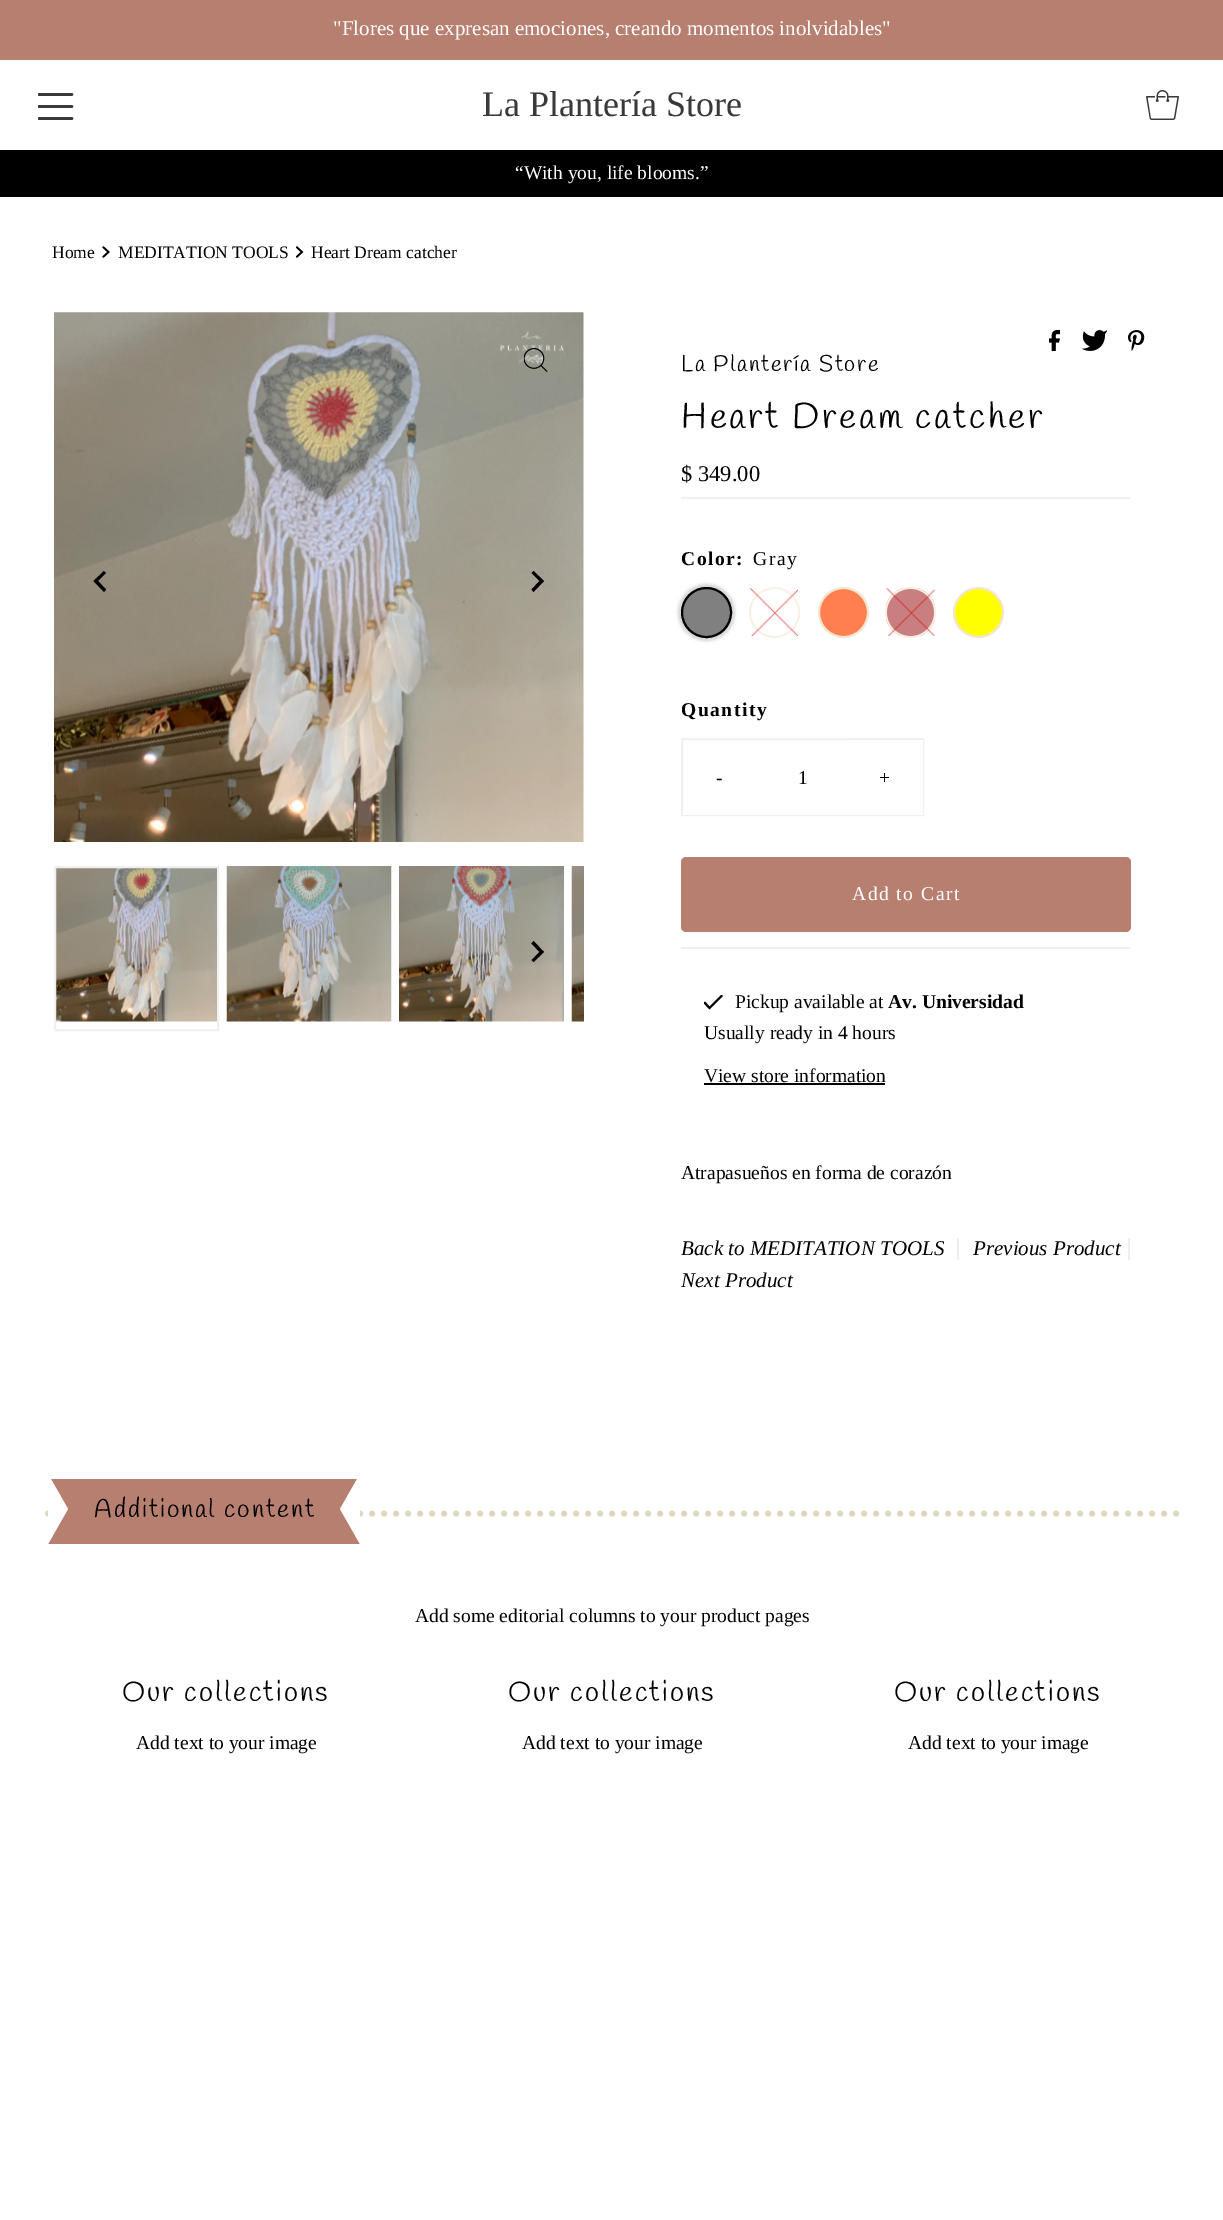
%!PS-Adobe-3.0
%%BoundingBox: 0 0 1223 2220
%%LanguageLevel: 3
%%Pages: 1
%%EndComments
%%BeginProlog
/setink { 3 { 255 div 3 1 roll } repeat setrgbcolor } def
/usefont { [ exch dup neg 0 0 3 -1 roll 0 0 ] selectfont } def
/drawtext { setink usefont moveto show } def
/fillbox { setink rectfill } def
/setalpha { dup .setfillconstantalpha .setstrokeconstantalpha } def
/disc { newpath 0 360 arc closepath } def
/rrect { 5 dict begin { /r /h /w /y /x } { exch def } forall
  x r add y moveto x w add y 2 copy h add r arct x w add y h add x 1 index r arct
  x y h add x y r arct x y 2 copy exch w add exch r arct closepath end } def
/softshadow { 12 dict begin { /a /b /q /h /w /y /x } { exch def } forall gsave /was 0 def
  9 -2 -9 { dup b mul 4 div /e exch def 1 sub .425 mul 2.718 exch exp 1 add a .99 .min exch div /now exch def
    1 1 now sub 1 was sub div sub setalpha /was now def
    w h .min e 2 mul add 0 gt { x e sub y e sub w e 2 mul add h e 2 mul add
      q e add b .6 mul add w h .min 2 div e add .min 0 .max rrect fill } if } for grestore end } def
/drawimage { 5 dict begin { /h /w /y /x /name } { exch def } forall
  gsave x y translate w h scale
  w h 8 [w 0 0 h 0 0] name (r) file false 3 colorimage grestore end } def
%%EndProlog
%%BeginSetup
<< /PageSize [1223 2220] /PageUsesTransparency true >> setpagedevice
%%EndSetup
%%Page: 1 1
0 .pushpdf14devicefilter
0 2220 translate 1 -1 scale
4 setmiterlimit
0 0 1223 2220 255 255 255 fillbox
0 0 1223 60 183 127 112 fillbox
("Flores que expresan emociones, creando momentos inolvidables") 333 35 /LiberationSerif-Regular 21 255 255 255 drawtext
(assets/img1.rgb) 38 93 36 27 drawimage
(La Plantería Store) 482 116 /LiberationSerif-Regular 36 57 57 57 drawtext
(assets/img2.rgb) 1146 90 33 30 drawimage
0 150 1223 47 0 0 0 fillbox
(“With you, life blooms.”) 515 179 /LiberationSerif-Regular 19.5 255 255 255 drawtext
(Home) 52 258 /LiberationSerif-Regular 17.5 0 0 0 drawtext
(assets/img3.rgb) 102 246 8 12 drawimage
(MEDITATION TOOLS) 118 258 /LiberationSerif-Regular 17.5 0 0 0 drawtext
(assets/img4.rgb) 296 246 8 12 drawimage
(Heart Dream catcher) 311 258 /LiberationSerif-Regular 17.5 0 0 0 drawtext
(assets/img5.rgb) 54 312 530 530 drawimage
(assets/img6.rgb) 524 348 24 24 drawimage
93.5 581 moveto 104 592 lineto 106 589.5 lineto 98 581 lineto 106 573 lineto 104 571 lineto closepath fill
544 581 moveto 533.5 571 lineto 531.5 573 lineto 539.5 581 lineto 531.5 589.5 lineto 533.5 592 lineto closepath fill
(assets/img7.rgb) 56 868 161 154 drawimage
240 240 240 setink
2 setlinewidth
55 867 163 163 rectstroke
(assets/img8.rgb) 226 866 166 156 drawimage
(assets/img9.rgb) 399 866 165 156 drawimage
(assets/img10.rgb) 571 866 13 156 drawimage
0 0 0 setink
544 952 moveto 533.5 941 lineto 531.5 943.5 lineto 539.5 952 lineto 531.5 960 lineto 533.5 962 lineto closepath fill
(assets/img11.rgb) 1049 330 12 21 drawimage
(assets/img12.rgb) 1082 330 25 21 drawimage
(assets/img13.rgb) 1128 330 17 21 drawimage
/Handlee-Regular 22.5 usefont
681 371 moveto 1.7 0 (La Plantería Store) ashow
/Handlee-Regular 36 usefont
681 428 moveto 2.75 0 (Heart Dream catcher) ashow
681 497 449 2 240 240 240 fillbox
($ 349.00) 681 481 /LiberationSerif-Regular 22.5 0 0 0 drawtext
/LiberationSerif-Bold 19.5 usefont
681 565 moveto 1.5 0 (Color:) ashow
/LiberationSerif-Regular 19.5 usefont
753 565 moveto 1.5 0 (Gray) ashow
214 214 214 setink
678 584 57 57 28.5 1.5 1 softshadow
128 128 128 setink
706.5 612.5 24.5 disc gsave fill grestore
0 0 0 setink
stroke
248 240 227 setink
774.5 612.5 24.5 disc stroke
(assets/img14.rgb) 750 588 48 48 drawimage
255 127 80 setink
843.5 612.5 24.5 disc gsave fill grestore
243 230 209 setink
stroke
201 127 127 setink
910.5 612.5 24.5 disc gsave fill grestore
248 240 227 setink
stroke
(assets/img15.rgb) 886 588 49 48 drawimage
255 255 0 setink
978.5 612.5 24.5 disc gsave fill grestore
243 230 209 setink
stroke
/LiberationSerif-Bold 19.5 usefont
0 0 0 setink
681 716 moveto 1.5 0 (Quantity) ashow
240 240 240 setink
682 739 241 76 rectstroke
683 814 165 1 255 255 255 fillbox
/LiberationSerif-Regular 19.5 usefont
0 0 0 setink
716 784 moveto 1.5 0 (-) ashow
(1) 798 784 /LiberationSerif-Regular 19.5 0 0 0 drawtext
848 740 75 75 255 255 255 fillbox
0 0 0 setink
879 784 moveto 1.5 0 (+) ashow
681 947 449 2 240 240 240 fillbox
183 127 112 setink
681 857 450 75 5 rrect fill
255 255 255 setink
852 900 moveto 1.5 0 (Add to Cart) ashow
gsave
704 995 19 15 rectclip
0 0 0 setink
709.5 1006.5 moveto 705 1001.5 lineto 703.5 1003 lineto 709.5 1009.5 lineto 723 996 lineto 721.5 994.5 lineto closepath fill
grestore
(Pickup available at) 735 1008 /LiberationSerif-Regular 19.5 0 0 0 drawtext
(Av. Universidad) 888 1008 /LiberationSerif-Bold 19.5 0 0 0 drawtext
(Usually ready in 4 hours) 704 1039 /LiberationSerif-Regular 19.5 0 0 0 drawtext
(View store information) 704 1082 /LiberationSerif-Regular 19.5 0 0 0 drawtext
704 1083 181 2 0 0 0 fillbox
(Atrapasueños en forma de corazón) 681 1179 /LiberationSerif-Regular 19.5 0 0 0 drawtext
(Back to MEDITATION TOOLS) 681 1255 /LiberationSerif-Italic 21 0 0 0 drawtext
957 1238 2 22 238 238 238 fillbox
(Previous Product) 973 1255 /LiberationSerif-Italic 21 0 0 0 drawtext
1128 1238 2 22 238 238 238 fillbox
(Next Product) 681 1287 /LiberationSerif-Italic 21 0 0 0 drawtext
222 214 192 setink
6 setlinewidth
1 setlinecap
[0 12] 0 setdash
48 1513.5 moveto 1176 1513.5 lineto stroke
48 1479 312 65 183 127 112 fillbox
255 255 255 setink
48 1544 moveto 48 1474 lineto 68 1509 lineto closepath fill
/Handlee-Regular 25.5 usefont
0 0 0 setink
94 1517 moveto 1.9 0 (Additional content) ashow
255 255 255 setink
360 1474 moveto 360 1544 lineto 340 1509 lineto closepath fill
(Add some editorial columns to your product pages) 415 1622 /LiberationSerif-Regular 19.5 0 0 0 drawtext
/Handlee-Regular 28.5 usefont
122 1701 moveto 2.1 0 (Our collections) ashow
(Add text to your image) 136 1749 /LiberationSerif-Regular 19.5 0 0 0 drawtext
/Handlee-Regular 28.5 usefont
508 1701 moveto 2.1 0 (Our collections) ashow
(Add text to your image) 522 1749 /LiberationSerif-Regular 19.5 0 0 0 drawtext
/Handlee-Regular 28.5 usefont
894 1701 moveto 2.1 0 (Our collections) ashow
(Add text to your image) 908 1749 /LiberationSerif-Regular 19.5 0 0 0 drawtext
.poppdf14devicefilter showpage
%%EOF
